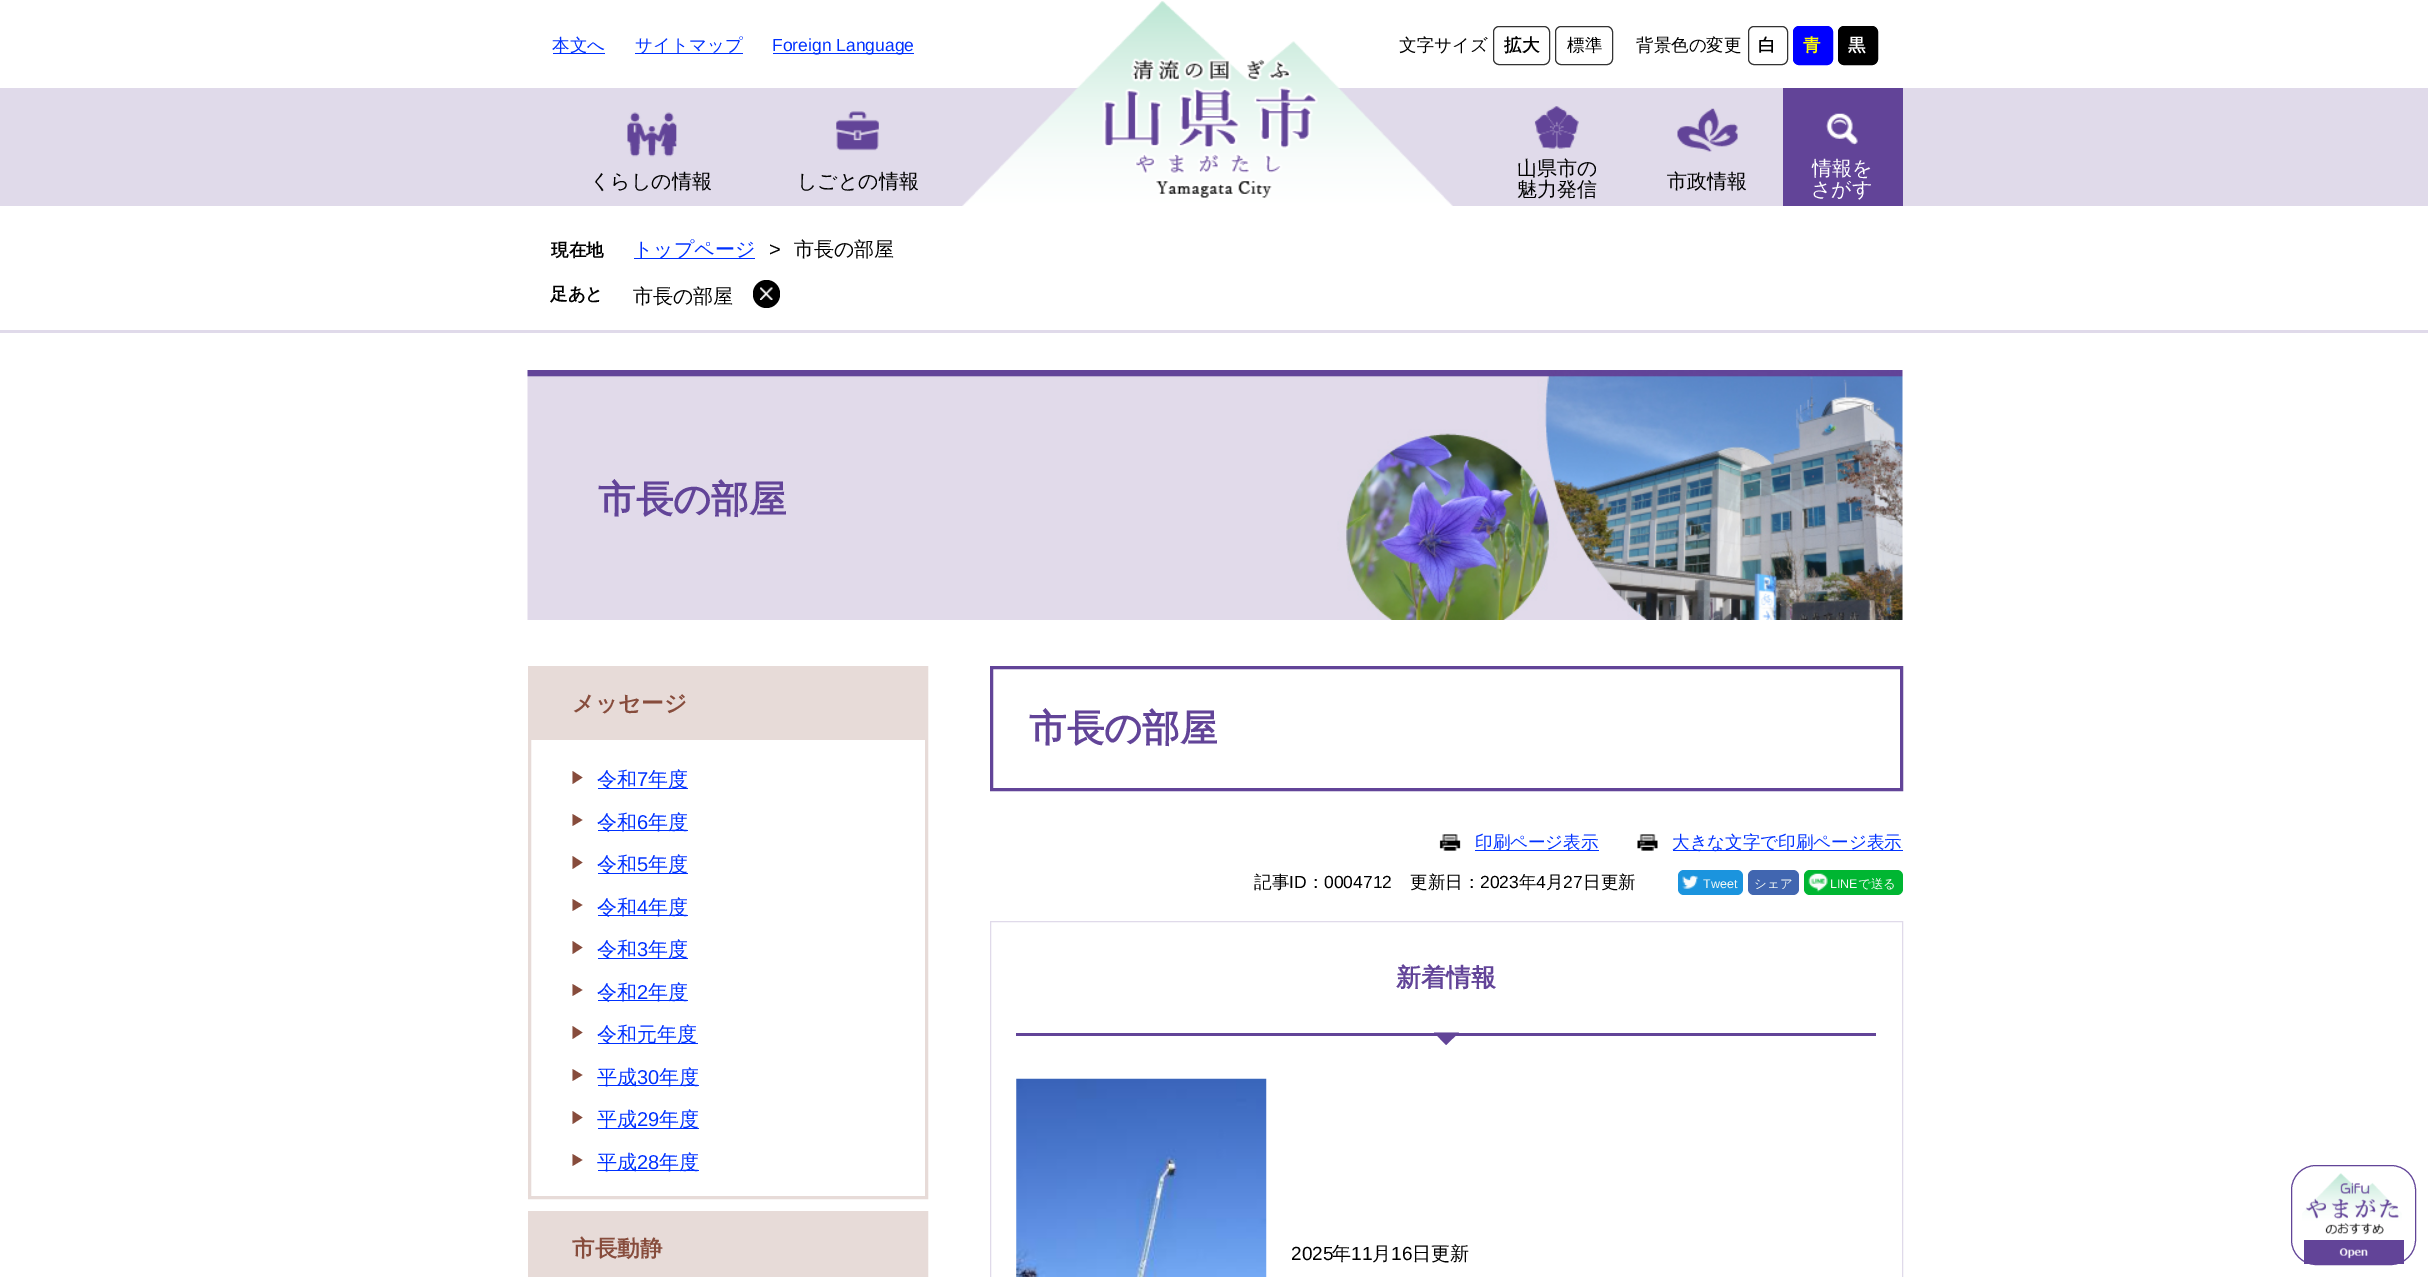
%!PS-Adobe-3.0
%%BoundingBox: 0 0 2428 1277
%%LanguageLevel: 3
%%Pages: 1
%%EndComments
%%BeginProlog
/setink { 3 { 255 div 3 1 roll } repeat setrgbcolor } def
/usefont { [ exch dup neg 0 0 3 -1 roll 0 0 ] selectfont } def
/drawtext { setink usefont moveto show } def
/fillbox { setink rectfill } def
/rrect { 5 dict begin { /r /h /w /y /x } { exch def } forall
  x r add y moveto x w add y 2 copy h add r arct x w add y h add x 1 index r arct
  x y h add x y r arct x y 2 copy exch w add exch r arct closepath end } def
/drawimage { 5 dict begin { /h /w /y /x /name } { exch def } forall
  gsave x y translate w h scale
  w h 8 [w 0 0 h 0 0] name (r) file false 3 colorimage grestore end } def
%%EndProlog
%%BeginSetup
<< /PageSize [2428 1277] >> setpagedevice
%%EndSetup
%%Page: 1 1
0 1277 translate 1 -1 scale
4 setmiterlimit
0 0 2428 1277 255 255 255 fillbox
(文字サイズ) 1399 51 /WenQuanYiZenHei-Medium 17.5 0 0 0 drawtext
0 88 2428 118 224 218 234 fillbox
(assets/img1.rgb) 962 1 491 205 drawimage
(assets/img2.rgb) 1102 57 216 141 drawimage
553 53 52 1 0 49 255 fillbox
(本文へ) 552 51 /WenQuanYiZenHei-Medium 17.5 0 49 255 drawtext
635 53 108 1 0 49 255 fillbox
(サイトマップ) 635 51 /WenQuanYiZenHei-Medium 17.5 0 49 255 drawtext
773 53 141 1 0 49 255 fillbox
(Foreign Language) 772 51 /LiberationSans-Regular 17.5 0 49 255 drawtext
51 51 51 setink
1493.5 26.5 56 38 5.5 rrect stroke
(拡大) 1504 51 /WenQuanYiZenHei-Bold 17.5 0 0 0 drawtext
51 51 51 setink
1555.5 26.5 57 38 5.5 rrect stroke
(標準) 1567 51 /WenQuanYiZenHei-Medium 17.5 0 0 0 drawtext
(背景色の変更) 1636 51 /WenQuanYiZenHei-Medium 17.5 0 0 0 drawtext
51 51 51 setink
1748.5 26.5 39 38 5.5 rrect stroke
(白) 1758 51 /WenQuanYiZenHei-Bold 17.5 0 0 0 drawtext
0 0 255 setink
1793.5 26.5 39 38 5.5 rrect gsave fill grestore
stroke
(青) 1803 51 /WenQuanYiZenHei-Bold 17.5 255 255 0 drawtext
0 0 0 setink
1838.5 26.5 39 38 5.5 rrect gsave fill grestore
stroke
(黒) 1848 51 /WenQuanYiZenHei-Bold 17.5 255 255 255 drawtext
(assets/img3.rgb) 627 112 50 45 drawimage
(くらしの情報) 590 188 /WenQuanYiZenHei-Medium 20 0 0 0 drawtext
(assets/img4.rgb) 836 111 43 40 drawimage
(しごとの情報) 797 188 /WenQuanYiZenHei-Medium 20 0 0 0 drawtext
(assets/img5.rgb) 1534 106 45 43 drawimage
(山県市の) 1517 175 /WenQuanYiZenHei-Medium 20 0 0 0 drawtext
(魅力発信) 1517 196 /WenQuanYiZenHei-Medium 20 0 0 0 drawtext
(assets/img6.rgb) 1677 108 61 44 drawimage
(市政情報) 1667 188 /WenQuanYiZenHei-Medium 20 0 0 0 drawtext
1783 88 120 118 98 68 152 fillbox
(assets/img7.rgb) 1826 113 32 32 drawimage
(情報を) 1812 175 /WenQuanYiZenHei-Medium 20 255 255 255 drawtext
(さがす) 1811 196 /WenQuanYiZenHei-Medium 20 255 255 255 drawtext
0 330 2428 3 224 218 234 fillbox
(現在地) 551 256 /WenQuanYiZenHei-Bold 17.5 0 0 0 drawtext
634 258 121 1 0 49 255 fillbox
(トップページ) 633 256 /WenQuanYiZenHei-Medium 20 0 49 255 drawtext
(>) 769 256 /LiberationSans-Regular 20 0 0 0 drawtext
(市長の部屋) 794 256 /WenQuanYiZenHei-Medium 20 0 0 0 drawtext
(足あと) 550 300 /WenQuanYiZenHei-Bold 17.5 0 0 0 drawtext
(市長の部屋) 633 303 /WenQuanYiZenHei-Medium 20 0 0 0 drawtext
753 280 27 28 13.5 rrect fill
(assets/img8.rgb) 760 287 13 13 drawimage
(assets/img9.rgb) 527 370 1376 250 drawimage
(市長の部屋) 598 512 /WenQuanYiZenHei-Bold 37.5 98 68 152 drawtext
231 219 216 setink
3 setlinewidth
529.5 667.5 397 530 rectstroke
531 669 394 71 231 219 216 fillbox
(メッセージ) 572 711 /WenQuanYiZenHei-Bold 22.5 135 76 60 drawtext
572.5 784 moveto 572.5 771 lineto 582.5 777.5 lineto closepath fill
598 788 90 1 0 49 255 fillbox
(令和) 597 786 /WenQuanYiZenHei-Medium 20 0 49 255 drawtext
(7) 637 786 /LiberationSans-Regular 20 0 49 255 drawtext
(年度) 648 786 /WenQuanYiZenHei-Medium 20 0 49 255 drawtext
135 76 60 setink
572.5 826 moveto 572.5 814 lineto 582.5 820 lineto closepath fill
598 830 90 1 0 49 255 fillbox
(令和) 597 829 /WenQuanYiZenHei-Medium 20 0 49 255 drawtext
(6) 637 829 /LiberationSans-Regular 20 0 49 255 drawtext
(年度) 648 829 /WenQuanYiZenHei-Medium 20 0 49 255 drawtext
135 76 60 setink
572.5 869 moveto 572.5 856 lineto 582.5 862.5 lineto closepath fill
598 873 90 1 0 49 255 fillbox
(令和) 597 871 /WenQuanYiZenHei-Medium 20 0 49 255 drawtext
(5) 637 871 /LiberationSans-Regular 20 0 49 255 drawtext
(年度) 648 871 /WenQuanYiZenHei-Medium 20 0 49 255 drawtext
135 76 60 setink
572.5 911 moveto 572.5 899 lineto 582.5 905 lineto closepath fill
598 915 90 1 0 49 255 fillbox
(令和) 597 914 /WenQuanYiZenHei-Medium 20 0 49 255 drawtext
(4) 637 914 /LiberationSans-Regular 20 0 49 255 drawtext
(年度) 648 914 /WenQuanYiZenHei-Medium 20 0 49 255 drawtext
135 76 60 setink
572.5 954 moveto 572.5 941 lineto 582.5 947.5 lineto closepath fill
598 958 90 1 0 49 255 fillbox
(令和) 597 956 /WenQuanYiZenHei-Medium 20 0 49 255 drawtext
(3) 637 956 /LiberationSans-Regular 20 0 49 255 drawtext
(年度) 648 956 /WenQuanYiZenHei-Medium 20 0 49 255 drawtext
135 76 60 setink
572.5 996 moveto 572.5 984 lineto 582.5 990 lineto closepath fill
598 1000 90 1 0 49 255 fillbox
(令和) 597 999 /WenQuanYiZenHei-Medium 20 0 49 255 drawtext
(2) 637 999 /LiberationSans-Regular 20 0 49 255 drawtext
(年度) 648 999 /WenQuanYiZenHei-Medium 20 0 49 255 drawtext
135 76 60 setink
572.5 1039 moveto 572.5 1026 lineto 582.5 1032.5 lineto closepath fill
598 1043 100 1 0 49 255 fillbox
(令和元年度) 597 1041 /WenQuanYiZenHei-Medium 20 0 49 255 drawtext
135 76 60 setink
572.5 1081 moveto 572.5 1069 lineto 582.5 1075 lineto closepath fill
598 1085 101 1 0 49 255 fillbox
(平成) 597 1084 /WenQuanYiZenHei-Medium 20 0 49 255 drawtext
(30) 637 1084 /LiberationSans-Regular 20 0 49 255 drawtext
(年度) 659 1084 /WenQuanYiZenHei-Medium 20 0 49 255 drawtext
135 76 60 setink
572.5 1124 moveto 572.5 1111 lineto 582.5 1117.5 lineto closepath fill
598 1128 101 1 0 49 255 fillbox
(平成) 597 1126 /WenQuanYiZenHei-Medium 20 0 49 255 drawtext
(29) 637 1126 /LiberationSans-Regular 20 0 49 255 drawtext
(年度) 659 1126 /WenQuanYiZenHei-Medium 20 0 49 255 drawtext
135 76 60 setink
572.5 1166 moveto 572.5 1154 lineto 582.5 1160 lineto closepath fill
598 1170 101 1 0 49 255 fillbox
(平成) 597 1169 /WenQuanYiZenHei-Medium 20 0 49 255 drawtext
(28) 637 1169 /LiberationSans-Regular 20 0 49 255 drawtext
(年度) 659 1169 /WenQuanYiZenHei-Medium 20 0 49 255 drawtext
231 219 216 setink
529.5 1212.5 397 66 rectstroke
531 1214 394 63 231 219 216 fillbox
(市長動静) 572 1256 /WenQuanYiZenHei-Bold 22.5 135 76 60 drawtext
98 68 152 setink
991.5 667.5 910 122 rectstroke
(市長の部屋) 1029 741 /WenQuanYiZenHei-Bold 37.5 98 68 152 drawtext
(assets/img10.rgb) 1439 834 22 17 drawimage
1475 850 124 1 0 49 255 fillbox
(印刷ページ表示) 1475 848 /WenQuanYiZenHei-Medium 17.5 0 49 255 drawtext
(assets/img11.rgb) 1637 834 21 17 drawimage
1673 850 230 1 0 49 255 fillbox
(大きな文字で印刷ページ表示) 1672 848 /WenQuanYiZenHei-Medium 17.5 0 49 255 drawtext
(記事) 1254 888 /WenQuanYiZenHei-Medium 17.5 0 0 0 drawtext
(ID) 1289 888 /LiberationSans-Regular 17.5 0 0 0 drawtext
(：) 1307 888 /WenQuanYiZenHei-Medium 17.5 0 0 0 drawtext
(0004712) 1324 888 /LiberationSans-Regular 17.5 0 0 0 drawtext
(更新日：) 1410 888 /WenQuanYiZenHei-Medium 17.5 0 0 0 drawtext
(2023) 1480 888 /LiberationSans-Regular 17.5 0 0 0 drawtext
(年) 1519 888 /WenQuanYiZenHei-Medium 17.5 0 0 0 drawtext
(4) 1536 888 /LiberationSans-Regular 17.5 0 0 0 drawtext
(月) 1546 888 /WenQuanYiZenHei-Medium 17.5 0 0 0 drawtext
(27) 1563 888 /LiberationSans-Regular 17.5 0 0 0 drawtext
(日更新) 1583 888 /WenQuanYiZenHei-Medium 17.5 0 0 0 drawtext
27 148 222 setink
1678 870 65 25 6 rrect fill
(assets/img12.rgb) 1682 875 17 14 drawimage
(Tweet) 1703 888 /LiberationSans-Regular 12.5 244 249 246 drawtext
65 102 176 setink
1748 870 51 25 6 rrect fill
(シェア) 1754 888 /WenQuanYiZenHei-Medium 12.5 244 249 246 drawtext
0 182 50 setink
1804 870 99 25 6 rrect fill
(assets/img13.rgb) 1808 873 20 19 drawimage
(LINE) 1830 888 /LiberationSans-Regular 12.5 244 249 246 drawtext
(で送る) 1858 888 /WenQuanYiZenHei-Medium 12.5 244 249 246 drawtext
224 218 234 setink
1 setlinewidth
990.5 921.5 912 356 rectstroke
1016 1033 860 3 98 68 152 fillbox
(新着情報) 1396 986 /WenQuanYiZenHei-Bold 25 98 68 152 drawtext
1434 1032.5 moveto 1459 1032.5 lineto 1446 1045 lineto closepath fill
(assets/img14.rgb) 1016 1078 251 199 drawimage
(2025) 1291 1260 /LiberationSans-Regular 19 0 0 0 drawtext
(年) 1332 1260 /WenQuanYiZenHei-Medium 19 0 0 0 drawtext
(11) 1351 1260 /LiberationSans-Regular 19 0 0 0 drawtext
(月) 1372 1260 /WenQuanYiZenHei-Medium 19 0 0 0 drawtext
(16) 1391 1260 /LiberationSans-Regular 19 0 0 0 drawtext
(日更新) 1412 1260 /WenQuanYiZenHei-Medium 19 0 0 0 drawtext
98 68 152 setink
2291.5 1165.5 124 99 24.5 rrect stroke
2304 1240 100 24 98 68 152 fillbox
(assets/img15.rgb) 2302 1173 100 86 drawimage
showpage
%%EOF
